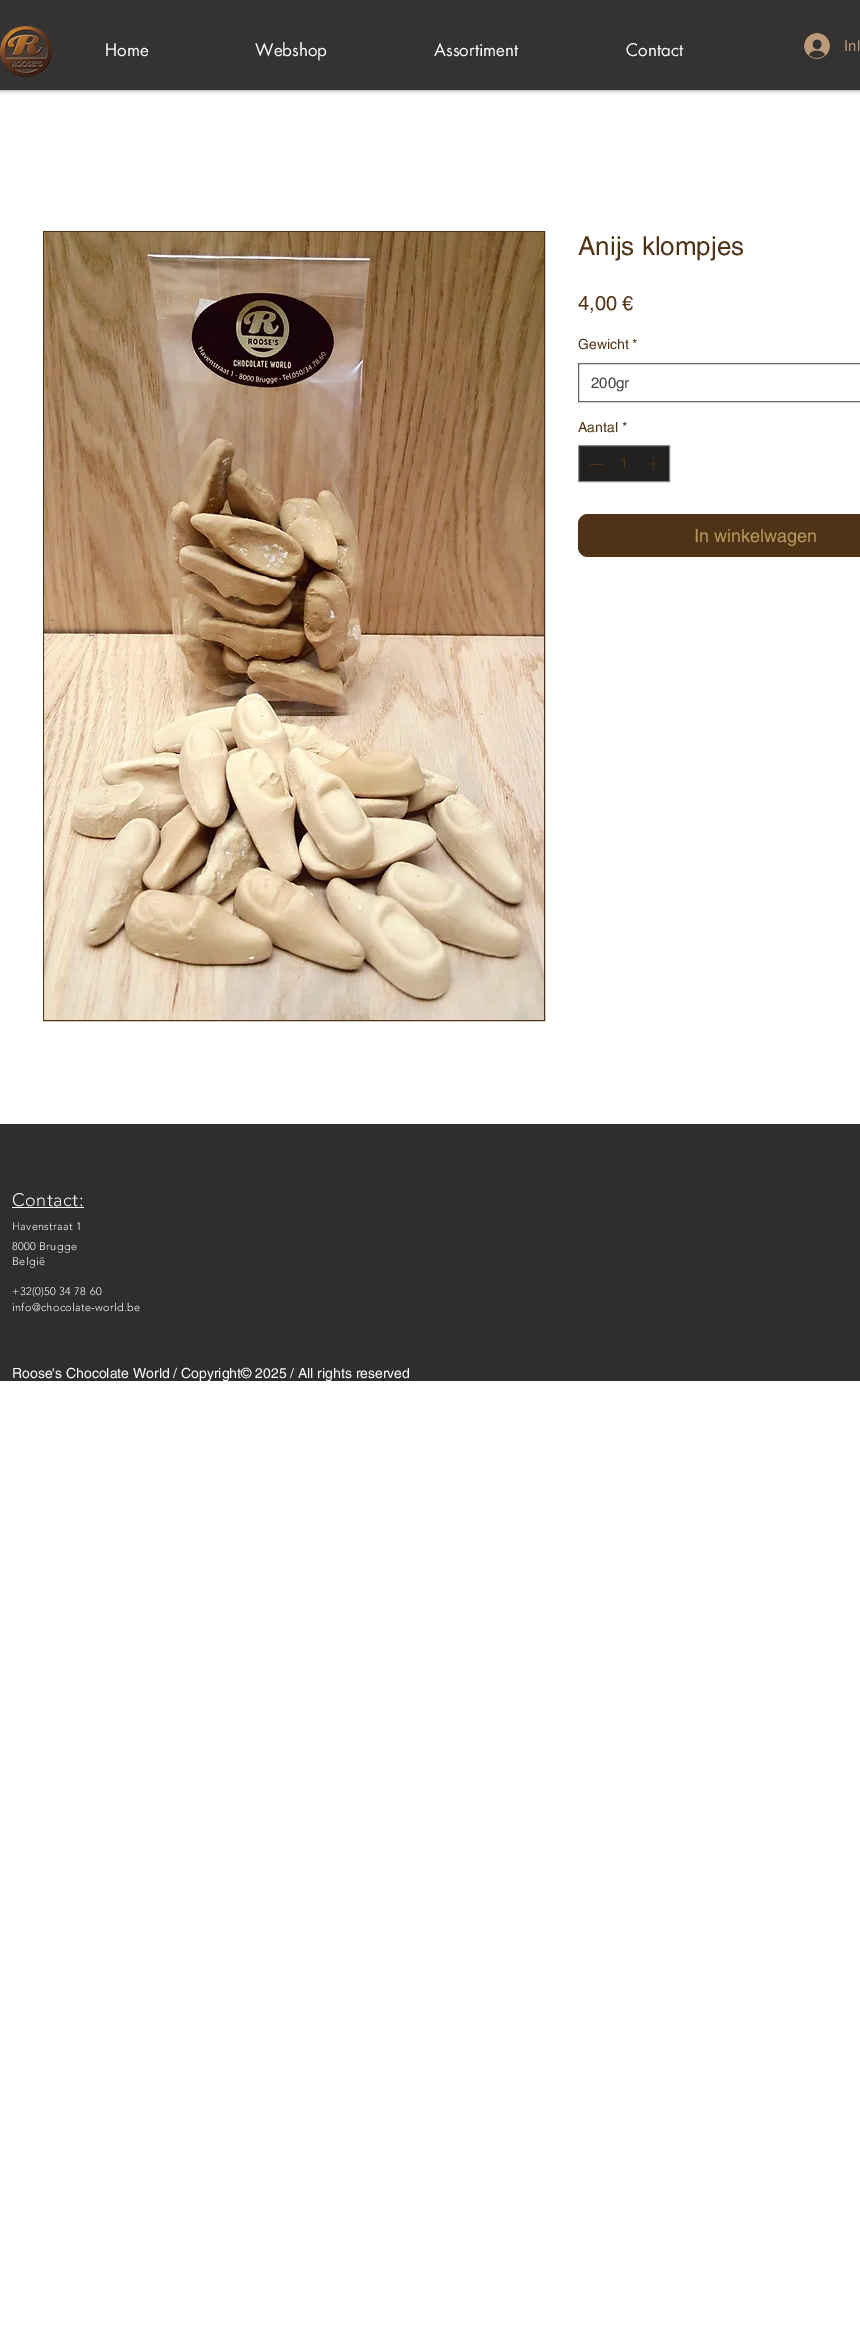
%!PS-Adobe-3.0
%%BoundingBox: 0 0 860 2333
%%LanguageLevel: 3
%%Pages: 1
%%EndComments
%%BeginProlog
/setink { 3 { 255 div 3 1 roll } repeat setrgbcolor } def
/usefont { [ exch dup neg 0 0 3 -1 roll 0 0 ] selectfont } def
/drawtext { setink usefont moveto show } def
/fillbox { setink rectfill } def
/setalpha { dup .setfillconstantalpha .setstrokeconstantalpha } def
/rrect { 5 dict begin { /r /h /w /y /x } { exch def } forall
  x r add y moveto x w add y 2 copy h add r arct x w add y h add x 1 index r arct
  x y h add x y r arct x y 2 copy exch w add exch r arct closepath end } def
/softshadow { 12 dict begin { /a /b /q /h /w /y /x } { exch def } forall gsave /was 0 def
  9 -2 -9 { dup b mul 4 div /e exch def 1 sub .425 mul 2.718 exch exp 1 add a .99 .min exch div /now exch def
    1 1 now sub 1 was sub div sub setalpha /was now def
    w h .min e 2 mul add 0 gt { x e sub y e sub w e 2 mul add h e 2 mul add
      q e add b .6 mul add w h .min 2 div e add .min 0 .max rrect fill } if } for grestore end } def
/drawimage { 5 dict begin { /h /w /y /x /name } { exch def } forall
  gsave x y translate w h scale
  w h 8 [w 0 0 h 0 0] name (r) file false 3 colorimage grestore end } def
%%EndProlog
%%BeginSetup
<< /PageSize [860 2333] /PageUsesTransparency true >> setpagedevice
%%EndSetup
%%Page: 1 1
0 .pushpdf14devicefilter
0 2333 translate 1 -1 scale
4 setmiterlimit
0 0 860 2333 255 255 255 fillbox
0 0 0 setink
0 0 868 90 0 2.5 0.5 softshadow
0 0 860 90 52 51 50 fillbox
(assets/img1.rgb) 0 26 52 51 drawimage
(Home) 105 56 /futura-Regular 17 255 255 255 drawtext
(Webshop) 255 56 /futura-Regular 17 255 255 255 drawtext
(Assortiment) 434 56 /futura-Regular 17 255 255 255 drawtext
(Contact) 626 56 /futura-Regular 17 255 255 255 drawtext
(assets/img2.rgb) 804 33 26 26 drawimage
(Inl) 844 51 /helvetica-Regular 15 188 153 121 drawtext
79 51 22 setink
43.5 231.5 501 789 rectstroke
(assets/img3.rgb) 44 232 500 788 drawimage
(Anijs klompjes) 578 255 /helvetica-Regular 26 79 51 22 drawtext
(4,00 €) 578 310 /helvetica-Regular 20 79 51 22 drawtext
(Gewicht *) 578 349 /helvetica-Regular 14 79 51 22 drawtext
102 102 102 setink
578.5 363.5 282 38 rectstroke
(200gr) 591 388 /helvetica-Regular 15 68 68 68 drawtext
(Aantal *) 578 432 /helvetica-Regular 14 79 51 22 drawtext
34 33 32 setink
578.5 445.5 moveto 669.5 445.5 lineto 669.5 481.5 lineto 578.5 481.5 lineto closepath gsave fill grestore
138 137 136 setink
stroke
590 464 13 1 79 51 22 fillbox
(1) 620 468 /helvetica-Regular 14 79 51 22 drawtext
(assets/img4.rgb) 646 457 14 14 drawimage
578 514 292 43 10 rrect fill
(In winkelwagen) 694 542 /helvetica-Regular 18 185 154 93 drawtext
0 1124 860 257 47 46 46 fillbox
/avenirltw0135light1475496-Light 18 usefont
249 249 249 setink
12 1206 moveto 0.5 0 (Contact:) ashow
12 1207 72 1 249 249 249 fillbox
/avenirltw0135light1475496-Light 11 usefont
12 1230 moveto 0.3 0 (Havenstraat 1) ashow
12 1250 moveto 0.3 0 (8000 Brugge) ashow
12 1265 moveto 0.3 0 (België) ashow
12 1295 moveto 0.3 0 (+32\(0\)50 34 78 60) ashow
12 1311 moveto 0.3 0 (info@chocolate-world.be) ashow
(Roose's Chocolate World / Copyright© 2025 / All rights reserved) 12 1378 /helvetica-Regular 14 255 255 255 drawtext
.poppdf14devicefilter showpage
%%EOF
